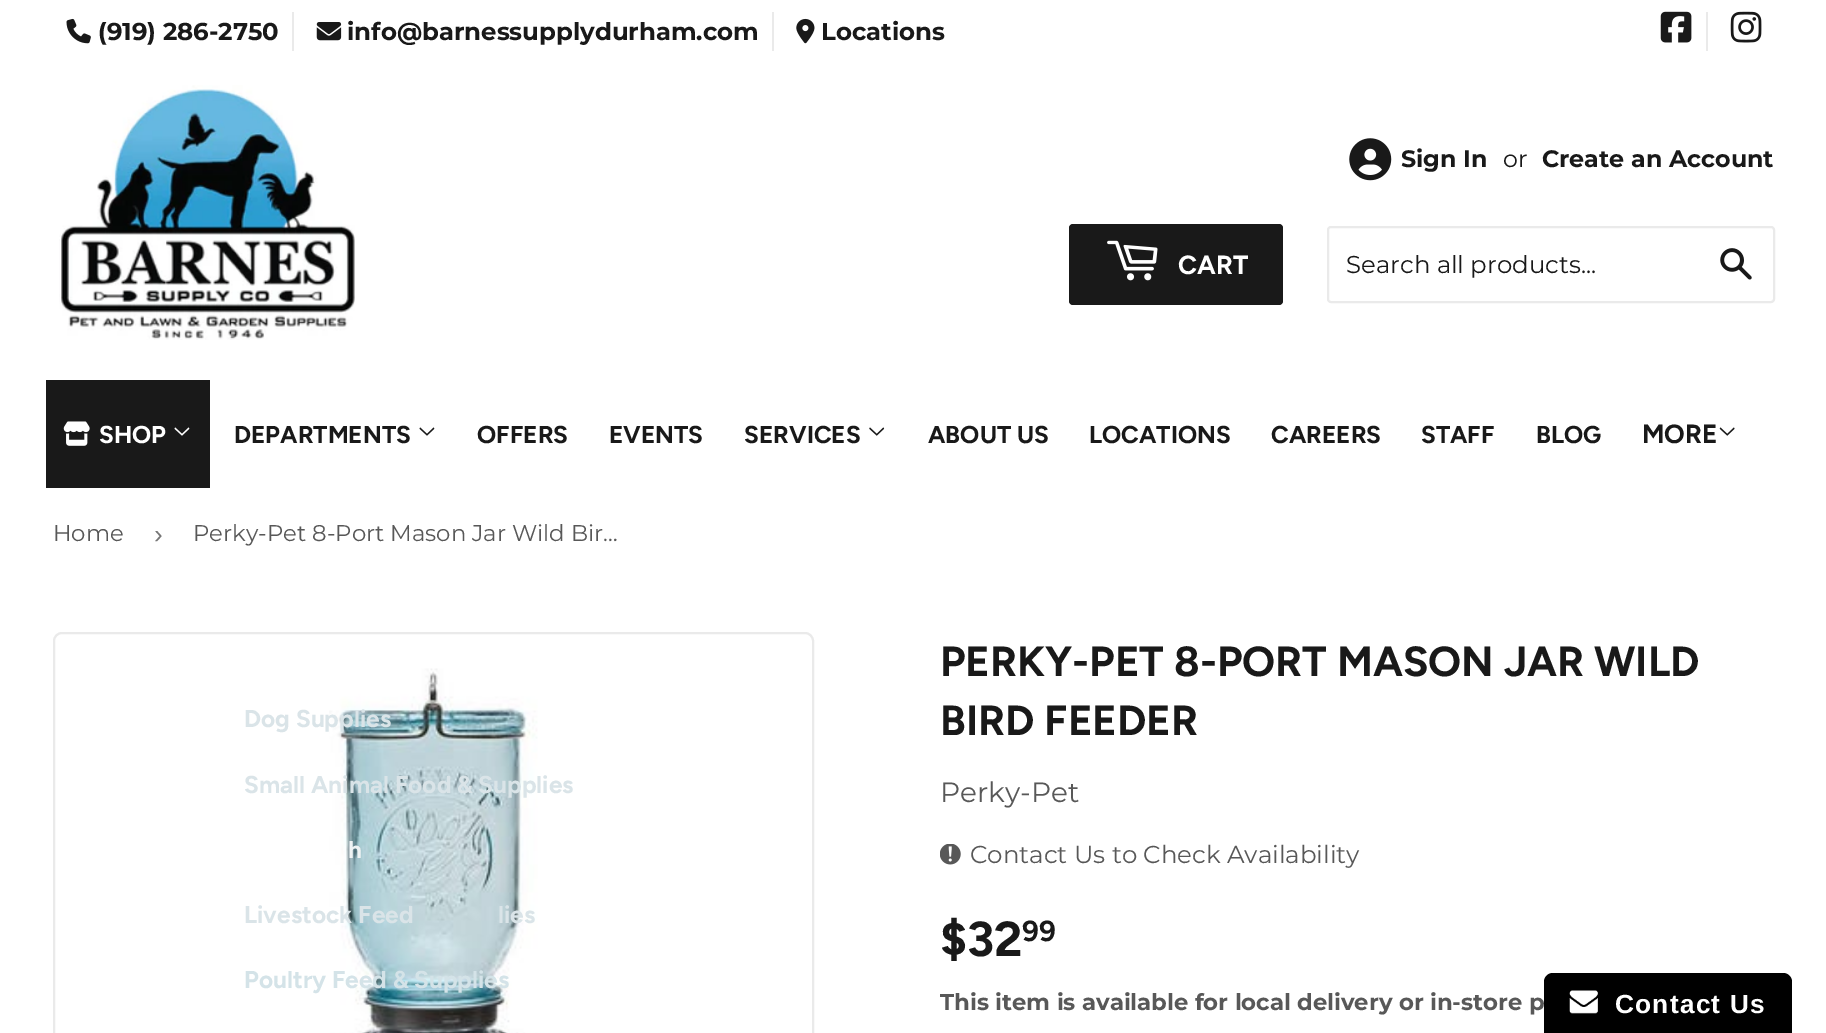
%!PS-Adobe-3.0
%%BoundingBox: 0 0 1826 1033
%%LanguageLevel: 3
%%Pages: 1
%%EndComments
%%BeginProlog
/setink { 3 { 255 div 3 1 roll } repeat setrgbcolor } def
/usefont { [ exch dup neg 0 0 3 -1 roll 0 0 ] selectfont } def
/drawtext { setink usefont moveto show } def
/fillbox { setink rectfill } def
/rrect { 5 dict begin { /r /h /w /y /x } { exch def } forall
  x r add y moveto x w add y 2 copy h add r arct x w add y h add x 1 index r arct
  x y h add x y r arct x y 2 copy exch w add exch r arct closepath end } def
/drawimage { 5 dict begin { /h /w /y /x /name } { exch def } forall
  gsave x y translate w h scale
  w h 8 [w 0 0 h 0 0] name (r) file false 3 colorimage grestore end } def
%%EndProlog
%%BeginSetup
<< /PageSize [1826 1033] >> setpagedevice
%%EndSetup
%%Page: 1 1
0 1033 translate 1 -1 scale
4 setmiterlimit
0 0 1826 1033 255 255 255 fillbox
292 12 2 39 234 234 234 fillbox
(assets/img1.rgb) 66 18 25 26 drawimage
(\(919\) 286-2750) 98 40 /Montserrat-Bold 24.4 25 25 25 drawtext
772 12 2 39 234 234 234 fillbox
(assets/img2.rgb) 316 22 26 19 drawimage
(info@barnessupplydurham.com) 347 40 /Montserrat-Bold 24.4 25 25 25 drawtext
(assets/img3.rgb) 796 18 19 26 drawimage
(Locations) 821 40 /Montserrat-Bold 24.4 25 25 25 drawtext
1706 12 2 39 234 234 234 fillbox
(assets/img4.rgb) 1660 11 32 32 drawimage
(assets/img5.rgb) 1730 11 32 32 drawimage
(assets/img6.rgb) 59 85 296 255 drawimage
(assets/img7.rgb) 1349 138 43 43 drawimage
(Sign In) 1401 167 /Montserrat-Bold 23.75 25 25 25 drawtext
(or) 1503 167 /Montserrat-Regular 23.75 25 25 25 drawtext
(Create an Account) 1542 167 /Montserrat-Bold 23.75 25 25 25 drawtext
1069 224 214 81 4 rrect fill
(assets/img8.rgb) 1107 240 51 41 drawimage
(CART) 1178 274 /Figtree-Bold 26.25 255 255 255 drawtext
234 234 234 setink
2 setlinewidth
1328 227 446 75 3 rrect stroke
(Search all products...) 1346 273 /Montserrat-Regular 24.4 25 25 25 drawtext
(assets/img9.rgb) 1720 248 32 32 drawimage
46 380 164 108 25 25 25 fillbox
(assets/img10.rgb) 63 421 27 25 drawimage
(SHOP) 99 443 /Figtree-Bold 24.4 255 255 255 drawtext
(assets/img11.rgb) 174 427 16 9 drawimage
(DEPARTMENTS) 234 443 /Figtree-Bold 24.4 25 25 25 drawtext
(assets/img12.rgb) 419 427 16 9 drawimage
234 234 234 setink
54 633 759 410 8 rrect stroke
(assets/img15.rgb) 329 668 209 365 drawimage
(Dog Supplies) 244 727 /Figtree-Bold 24.4 218 228 232 drawtext
(Small Animal Food & Supplies) 244 793 /Figtree-Bold 24.4 218 228 232 drawtext
(h) 348 858 /Figtree-Bold 24.4 239 243 244 drawtext
(Livestock Feed) 244 923 /Figtree-Bold 24.4 218 228 232 drawtext
(lies) 498 923 /Figtree-Bold 24.4 218 228 232 drawtext
(Poultry Feed & Supplies) 244 988 /Figtree-Bold 24.4 212 227 232 drawtext
(MORE) 1642 443 /Figtree-Bold 26.25 25 25 25 drawtext
(assets/img13.rgb) 1719 427 16 9 drawimage
(OFFERS) 477 443 /Figtree-Bold 24.4 25 25 25 drawtext
(EVENTS) 609 443 /Figtree-Bold 24.4 25 25 25 drawtext
(SERVICES) 744 443 /Figtree-Bold 24.4 25 25 25 drawtext
(assets/img14.rgb) 869 427 16 9 drawimage
(ABOUT US) 928 443 /Figtree-Bold 24.4 25 25 25 drawtext
(LOCATIONS) 1089 443 /Figtree-Bold 24.4 25 25 25 drawtext
(CAREERS) 1271 443 /Figtree-Bold 24.4 25 25 25 drawtext
(STAFF) 1421 443 /Figtree-Bold 24.4 25 25 25 drawtext
(BLOG) 1536 443 /Figtree-Bold 24.4 25 25 25 drawtext
(Home) 53 541 /Montserrat-Regular 22.75 88 88 88 drawtext
(›) 154 543 /LiberationSans-Regular 26.25 118 118 118 drawtext
(Perky-Pet 8-Port Mason Jar Wild Bir…) 193 541 /Montserrat-Regular 22.75 88 88 88 drawtext
(PERKY-PET 8-PORT MASON JAR WILD) 940 676 /Figtree-Bold 42 25 25 25 drawtext
(BIRD FEEDER) 940 735 /Figtree-Bold 42 25 25 25 drawtext
(Perky-Pet) 940 802 /Montserrat-Regular 28 88 88 88 drawtext
(assets/img16.rgb) 940 844 21 21 drawimage
(Contact Us to Check Availability) 970 863 /Montserrat-Regular 24.5 88 88 88 drawtext
($32) 940 956 /Figtree-Bold 49 25 25 25 drawtext
(99) 1022 941 /Figtree-Bold 29 25 25 25 drawtext
(This item is available for local delivery or in-store p) 940 1010 /Montserrat-Bold 22.75 88 88 88 drawtext
0 0 0 setink
1553 973 moveto 1783 973 lineto 1788 973 1792 977 1792 982 curveto 1792 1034 lineto 1544 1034 lineto 1544 982 lineto 1544 977 1548 973 1553 973 curveto closepath fill
(assets/img17.rgb) 1569 990 29 24 drawimage
/LiberationSans-Bold 26.25 usefont
255 255 255 setink
1615 1013 moveto 1.25 0 (Contact Us) ashow
showpage
%%EOF
